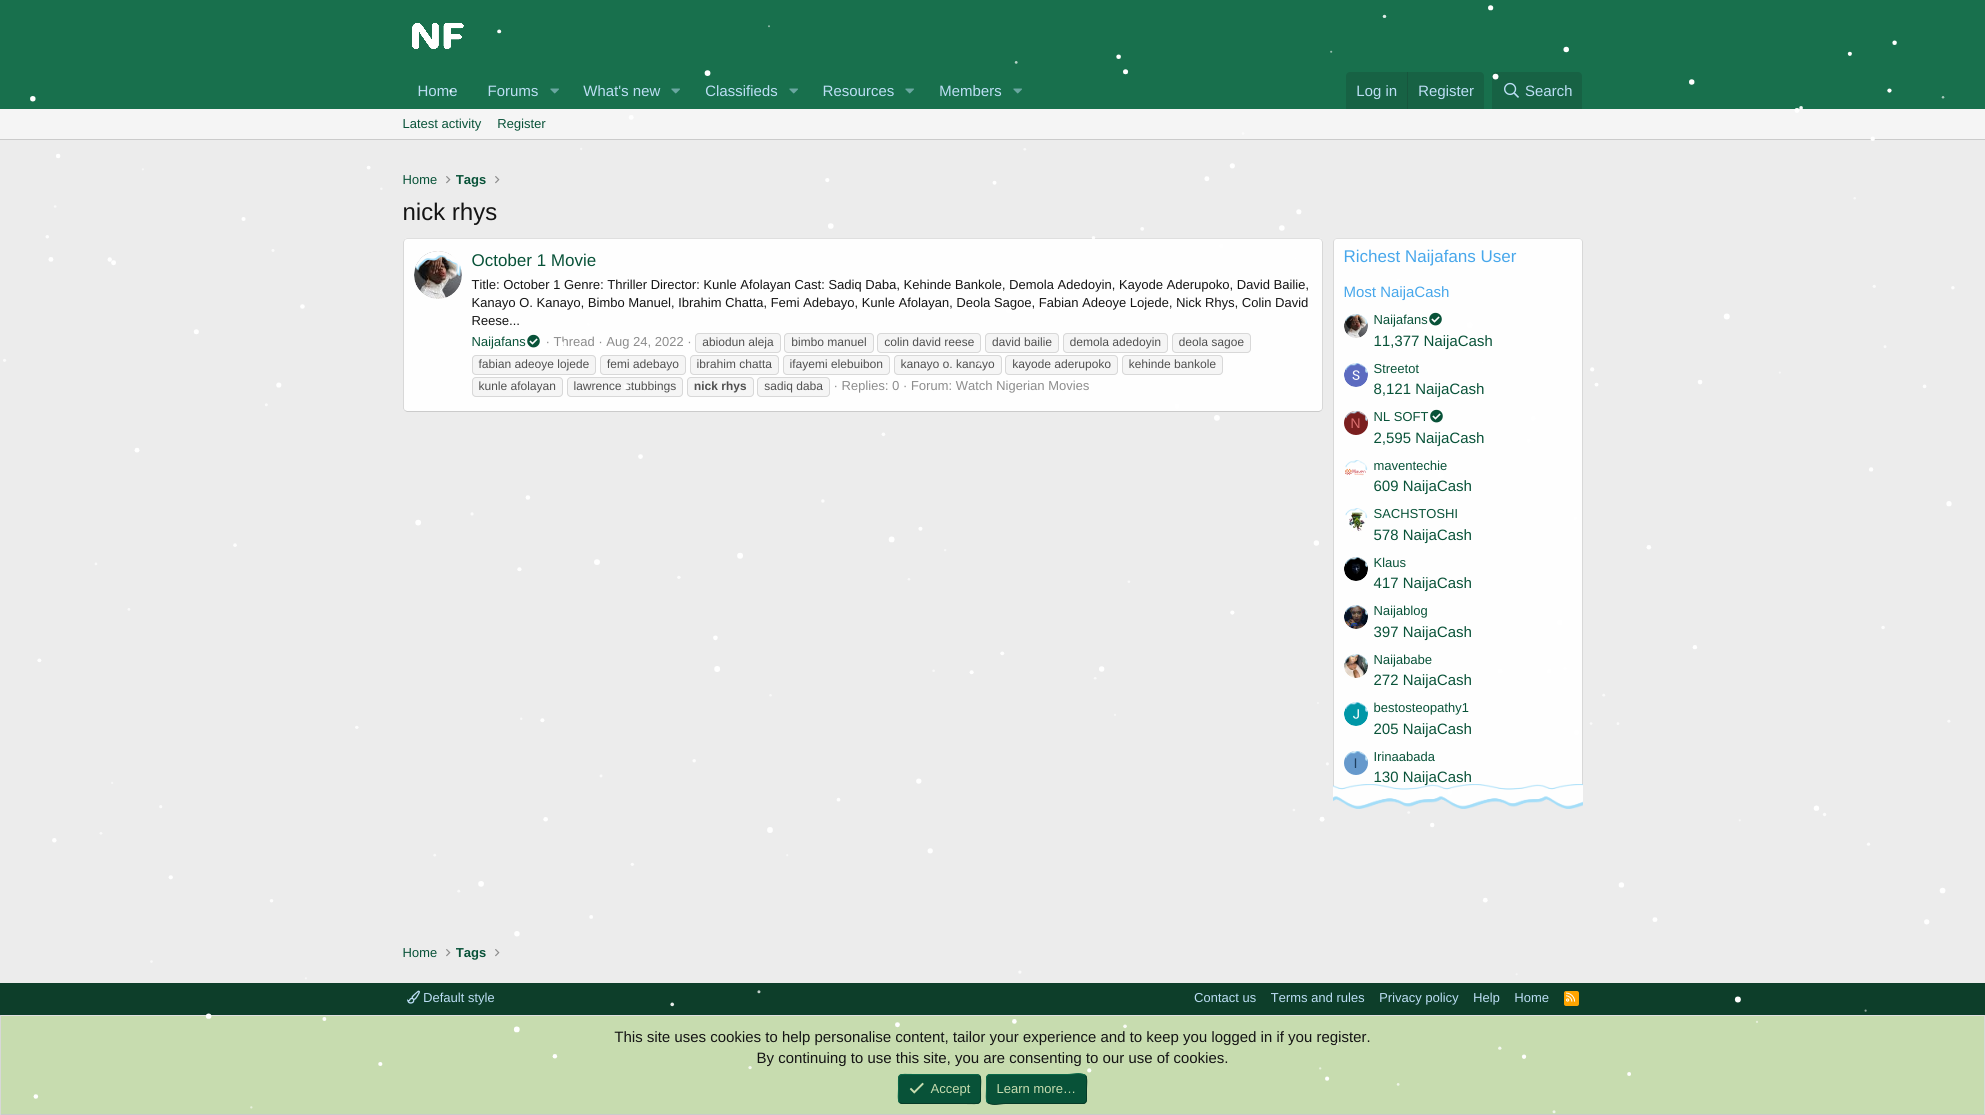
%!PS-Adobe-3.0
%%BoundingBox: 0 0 1985 1115
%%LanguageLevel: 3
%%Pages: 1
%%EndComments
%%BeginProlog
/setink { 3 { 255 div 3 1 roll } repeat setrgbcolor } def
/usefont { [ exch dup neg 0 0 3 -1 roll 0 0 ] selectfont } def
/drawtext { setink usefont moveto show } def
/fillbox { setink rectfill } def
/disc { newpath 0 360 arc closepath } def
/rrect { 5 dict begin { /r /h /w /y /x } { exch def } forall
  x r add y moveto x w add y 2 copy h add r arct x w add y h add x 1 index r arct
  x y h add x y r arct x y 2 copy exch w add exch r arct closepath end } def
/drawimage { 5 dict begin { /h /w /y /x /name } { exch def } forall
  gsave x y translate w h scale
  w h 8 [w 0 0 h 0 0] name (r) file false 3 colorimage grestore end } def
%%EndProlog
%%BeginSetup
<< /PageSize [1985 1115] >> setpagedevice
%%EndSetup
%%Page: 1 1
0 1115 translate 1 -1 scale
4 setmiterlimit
0 0 1985 1115 236 236 236 fillbox
0 0 1985 109 24 112 77 fillbox
(assets/img2.rgb) 412 23 52 26 drawimage
(Home) 418 96 /LiberationSans-Regular 15 188 222 245 drawtext
(Forums) 488 96 /LiberationSans-Regular 15 188 222 245 drawtext
(assets/img3.rgb) 550 88 9 6 drawimage
(What's new) 583 96 /LiberationSans-Regular 15 188 222 245 drawtext
(assets/img3.rgb) 671 88 9 6 drawimage
(Classifieds) 705 96 /LiberationSans-Regular 15 188 222 245 drawtext
(assets/img3.rgb) 789 88 9 6 drawimage
(Resources) 823 96 /LiberationSans-Regular 15 188 222 245 drawtext
(assets/img3.rgb) 905 88 9 6 drawimage
(Members) 939 96 /LiberationSans-Regular 15 188 222 245 drawtext
(assets/img3.rgb) 1013 88 9 6 drawimage
23 98 68 setink
1350 72 moveto 1480 72 lineto 1482 72 1484 74 1484 76 curveto 1484 109 lineto 1346 109 lineto 1346 76 lineto 1346 74 1348 72 1350 72 curveto closepath fill
(Log in) 1356 96 /LiberationSans-Regular 15 188 222 245 drawtext
1407 72 1 37 23 86 61 fillbox
(Register) 1418 96 /LiberationSans-Regular 15 188 222 245 drawtext
23 98 68 setink
1496 72 moveto 1578 72 lineto 1580 72 1582 74 1582 76 curveto 1582 109 lineto 1492 109 lineto 1492 76 lineto 1492 74 1494 72 1496 72 curveto closepath fill
(assets/img4.rgb) 1504 82 15 16 drawimage
(Search) 1525 96 /LiberationSans-Regular 15 188 222 245 drawtext
0 109 1985 30 245 245 245 fillbox
0 139 1985 1 203 203 203 fillbox
(Latest activity) 403 128 /LiberationSans-Regular 13 8 82 56 drawtext
(Register) 497 128 /LiberationSans-Regular 13 8 82 56 drawtext
(Home) 403 184 /LiberationSans-Regular 13 8 82 56 drawtext
(assets/img5.rgb) 446 176 5 8 drawimage
(Tags) 456 184 /LiberationSans-Bold 13 8 82 56 drawtext
(assets/img5.rgb) 495 176 5 8 drawimage
(nick rhys) 403 220 /LiberationSans-Regular 24 20 20 20 drawtext
254 254 254 setink
403 238 920 174 4 rrect fill
223 223 223 setink
404.5 239.5 moveto 407 238.5 lineto 1319 238.5 lineto 1321.5 239.5 lineto stroke
216 216 216 setink
1321.5 239.5 moveto 1322.5 242 lineto 1322.5 408.5 lineto 1321.5 410.5 lineto stroke
203 203 203 setink
1321.5 410.5 moveto 1319 411.5 lineto 407 411.5 lineto 404.5 410.5 lineto stroke
216 216 216 setink
404.5 410.5 moveto 403.5 408.5 lineto 403.5 269.5 lineto 403.5 242 lineto 404.5 239.5 lineto stroke
(assets/img6.rgb) 414 251 48 48 drawimage
(assets/img7.rgb) 415 251 46 25 drawimage
(October 1 Movie) 472 266 /LiberationSans-Regular 17 8 82 56 drawtext
(Title: October 1 Genre: Thriller Director: Kunle Afolayan Cast: Sadiq Daba, Kehinde Bankole, Demola Adedoyin, Kayode Aderupoko, David Bailie,) 472 289 /LiberationSans-Regular 13 20 20 20 drawtext
(Kanayo O. Kanayo, Bimbo Manuel, Ibrahim Chatta, Femi Adebayo, Kunle Afolayan, Deola Sagoe, Fabian Adeoye Lojede, Nick Rhys, Colin David) 472 307 /LiberationSans-Regular 13 20 20 20 drawtext
(Reese...) 472 325 /LiberationSans-Regular 13 20 20 20 drawtext
(Naijafans) 472 346 /LiberationSans-Regular 13 8 82 56 drawtext
(assets/img8.rgb) 527 334 13 14 drawimage
(· Thread · Aug 24, 2022 ·) 546 346 /LiberationSans-Regular 13 140 140 140 drawtext
245 245 245 setink
695.5 333.5 85 19 3.5 rrect gsave fill grestore
216 216 216 setink
stroke
(abiodun aleja) 702 346 /LiberationSans-Regular 12 80 80 80 drawtext
245 245 245 setink
784.5 333.5 89 19 3.5 rrect gsave fill grestore
216 216 216 setink
stroke
(bimbo manuel) 791 346 /LiberationSans-Regular 12 80 80 80 drawtext
245 245 245 setink
877.5 333.5 103 19 3.5 rrect gsave fill grestore
216 216 216 setink
stroke
(colin david reese) 884 346 /LiberationSans-Regular 12 80 80 80 drawtext
245 245 245 setink
985.5 333.5 73 19 3.5 rrect gsave fill grestore
216 216 216 setink
stroke
(david bailie) 992 346 /LiberationSans-Regular 12 80 80 80 drawtext
245 245 245 setink
1063.5 333.5 104 19 3.5 rrect gsave fill grestore
216 216 216 setink
stroke
(demola adedoyin) 1070 346 /LiberationSans-Regular 12 80 80 80 drawtext
245 245 245 setink
1172.5 333.5 78 19 3.5 rrect gsave fill grestore
216 216 216 setink
stroke
(deola sagoe) 1179 346 /LiberationSans-Regular 12 80 80 80 drawtext
245 245 245 setink
472.5 355.5 123 19 3.5 rrect gsave fill grestore
216 216 216 setink
stroke
(fabian adeoye lojede) 479 368 /LiberationSans-Regular 12 80 80 80 drawtext
245 245 245 setink
600.5 355.5 85 19 3.5 rrect gsave fill grestore
216 216 216 setink
stroke
(femi adebayo) 607 368 /LiberationSans-Regular 12 80 80 80 drawtext
245 245 245 setink
690.5 355.5 88 19 3.5 rrect gsave fill grestore
216 216 216 setink
stroke
(ibrahim chatta) 697 368 /LiberationSans-Regular 12 80 80 80 drawtext
245 245 245 setink
783.5 355.5 106 19 3.5 rrect gsave fill grestore
216 216 216 setink
stroke
(ifayemi elebuibon) 790 368 /LiberationSans-Regular 12 80 80 80 drawtext
245 245 245 setink
894.5 355.5 107 19 3.5 rrect gsave fill grestore
216 216 216 setink
stroke
(kanayo o. kanayo) 901 368 /LiberationSans-Regular 12 80 80 80 drawtext
245 245 245 setink
1005.5 355.5 112 19 3.5 rrect gsave fill grestore
216 216 216 setink
stroke
(kayode aderupoko) 1012 368 /LiberationSans-Regular 12 80 80 80 drawtext
245 245 245 setink
1122.5 355.5 100 19 3.5 rrect gsave fill grestore
216 216 216 setink
stroke
(kehinde bankole) 1129 368 /LiberationSans-Regular 12 80 80 80 drawtext
245 245 245 setink
472.5 377.5 90 19 3.5 rrect gsave fill grestore
216 216 216 setink
stroke
(kunle afolayan) 479 390 /LiberationSans-Regular 12 80 80 80 drawtext
245 245 245 setink
567.5 377.5 115 19 3.5 rrect gsave fill grestore
216 216 216 setink
stroke
(lawrence stubbings) 574 390 /LiberationSans-Regular 12 80 80 80 drawtext
245 245 245 setink
687.5 377.5 66 19 3.5 rrect gsave fill grestore
216 216 216 setink
stroke
(nick rhys) 694 390 /LiberationSans-Bold 12 80 80 80 drawtext
245 245 245 setink
757.5 377.5 72 19 3.5 rrect gsave fill grestore
216 216 216 setink
stroke
(sadiq daba) 764 390 /LiberationSans-Regular 12 80 80 80 drawtext
(· Replies: 0 · Forum: Watch Nigerian Movies) 834 390 /LiberationSans-Regular 13 140 140 140 drawtext
254 254 254 setink
1333 238 250 556 4 rrect fill
223 223 223 setink
1334.5 239.5 moveto 1335 239 1336 238.5 1337 238.5 curveto 1579 238.5 lineto 1580 238.5 1581 239 1581.5 239.5 curveto stroke
216 216 216 setink
1581.5 239.5 moveto 1582 240 1582.5 241 1582.5 242 curveto 1582.5 790 lineto 1582.5 791 1582 792 1581.5 792.5 curveto stroke
1334.5 792.5 moveto 1334 792 1333.5 791 1333.5 790 curveto 1333.5 242 lineto 1333.5 241 1334 240 1334.5 239.5 curveto stroke
(Richest Naijafans User) 1344 262 /LiberationSans-Regular 17 71 167 235 drawtext
(Most NaijaCash) 1344 297 /LiberationSans-Regular 15 71 167 235 drawtext
(assets/img9.rgb) 1344 314 24 24 drawimage
(assets/img10.rgb) 1345 314 23 10 drawimage
(Naijafans) 1374 324 /LiberationSans-Regular 13 8 82 56 drawtext
(assets/img8.rgb) 1429 312 13 14 drawimage
(11,377 NaijaCash) 1374 346 /LiberationSans-Regular 15 8 82 56 drawtext
(assets/img11.rgb) 1344 363 24 24 drawimage
(assets/img12.rgb) 1345 363 23 10 drawimage
(Streetot) 1374 373 /LiberationSans-Regular 13 8 82 56 drawtext
(8,121 NaijaCash) 1374 394 /LiberationSans-Regular 15 8 82 56 drawtext
122 31 31 setink
1356 423 12 disc fill
(N) 1350 428 /LiberationSans-Regular 14 219 112 112 drawtext
(assets/img13.rgb) 1345 411 23 10 drawimage
(NL SOFT) 1374 421 /LiberationSans-Regular 13 8 82 56 drawtext
(assets/img8.rgb) 1430 409 13 14 drawimage
(2,595 NaijaCash) 1374 443 /LiberationSans-Regular 15 8 82 56 drawtext
(assets/img15.rgb) 1345 468 21 8 drawimage
(assets/img14.rgb) 1345 460 23 10 drawimage
(maventechie) 1374 470 /LiberationSans-Regular 13 8 82 56 drawtext
(609 NaijaCash) 1374 491 /LiberationSans-Regular 15 8 82 56 drawtext
(assets/img17.rgb) 1349 511 17 21 drawimage
(assets/img16.rgb) 1345 508 23 10 drawimage
(SACHSTOSHI) 1374 518 /LiberationSans-Regular 13 8 82 56 drawtext
(578 NaijaCash) 1374 540 /LiberationSans-Regular 15 8 82 56 drawtext
(assets/img18.rgb) 1344 557 24 24 drawimage
(assets/img19.rgb) 1345 557 23 10 drawimage
(Klaus) 1374 567 /LiberationSans-Regular 13 8 82 56 drawtext
(417 NaijaCash) 1374 588 /LiberationSans-Regular 15 8 82 56 drawtext
(assets/img20.rgb) 1344 605 24 24 drawimage
(assets/img21.rgb) 1345 605 23 10 drawimage
(Naijablog) 1374 615 /LiberationSans-Regular 13 8 82 56 drawtext
(397 NaijaCash) 1374 637 /LiberationSans-Regular 15 8 82 56 drawtext
(assets/img22.rgb) 1344 654 24 24 drawimage
(assets/img23.rgb) 1345 654 23 10 drawimage
(Naijababe) 1374 664 /LiberationSans-Regular 13 8 82 56 drawtext
(272 NaijaCash) 1374 685 /LiberationSans-Regular 15 8 82 56 drawtext
(assets/img24.rgb) 1344 702 24 24 drawimage
(assets/img25.rgb) 1345 702 22 10 drawimage
(bestosteopathy1) 1374 712 /LiberationSans-Regular 13 8 82 56 drawtext
(205 NaijaCash) 1374 734 /LiberationSans-Regular 15 8 82 56 drawtext
102 153 204 setink
1356 763 12 disc fill
(I) 1354 768 /LiberationSans-Regular 14 32 64 96 drawtext
(assets/img26.rgb) 1345 751 22 10 drawimage
(Irinaabada) 1374 761 /LiberationSans-Regular 13 8 82 56 drawtext
(130 NaijaCash) 1374 782 /LiberationSans-Regular 15 8 82 56 drawtext
(assets/img27.rgb) 1333 784 250 25 drawimage
(Home) 403 957 /LiberationSans-Regular 13 8 82 56 drawtext
(assets/img5.rgb) 446 949 5 8 drawimage
(Tags) 456 957 /LiberationSans-Bold 13 8 82 56 drawtext
(assets/img5.rgb) 495 949 5 8 drawimage
0 983 1985 32 13 62 42 fillbox
(assets/img28.rgb) 407 990 13 14 drawimage
(Default style) 423 1002 /LiberationSans-Regular 13 188 222 245 drawtext
(Contact us) 1194 1002 /LiberationSans-Regular 13 188 222 245 drawtext
(Terms and rules) 1271 1002 /LiberationSans-Regular 13 188 222 245 drawtext
(Privacy policy) 1379 1002 /LiberationSans-Regular 13 188 222 245 drawtext
(Help) 1473 1002 /LiberationSans-Regular 13 188 222 245 drawtext
(Home) 1514 1002 /LiberationSans-Regular 13 188 222 245 drawtext
255 165 0 setink
1564 991 15 15 2 rrect fill
(assets/img29.rgb) 1566 992 10 10 drawimage
1 1016 1983 98 199 220 175 fillbox
0 1015 1985 1 223 223 223 fillbox
(This site uses cookies to help personalise content, tailor your experience and to keep you logged in if you register.) 614 1042 /LiberationSans-Regular 15 20 20 20 drawtext
(By continuing to use this site, you are consenting to our use of cookies.) 757 1063 /LiberationSans-Regular 15 20 20 20 drawtext
8 82 56 setink
898 1074 83 30 4 rrect fill
6 59 40 setink
979.5 1075.5 moveto 981.5 1077.5 980.5 1086 980.5 1089 curveto 980.5 1106 982.5 1103.5 964.5 1103.5 curveto 902 1103.5 lineto 899.5 1102.5 lineto stroke
10 105 72 setink
899.5 1102.5 moveto 897.5 1100.5 898.5 1092 898.5 1089 curveto 898.5 1072 896.5 1074.5 914.5 1074.5 curveto 977 1074.5 lineto 979.5 1075.5 lineto stroke
(assets/img30.rgb) 909 1082 15 12 drawimage
(Accept) 931 1093 /LiberationSans-Regular 13 199 220 175 drawtext
8 82 56 setink
986 1074 101 30 4 rrect fill
6 59 40 setink
1085.5 1075.5 moveto 1087.5 1077.5 1086.5 1086 1086.5 1089 curveto 1086.5 1096.5 lineto 1086.5 1099 1087 1103.5 1083 1103.5 curveto 1005.5 1103.5 lineto 1000 1103.5 993.5 1106 988.5 1103 curveto 987.5 1102.5 lineto stroke
10 105 72 setink
987.5 1102.5 moveto 985.5 1100.5 986.5 1092 986.5 1089 curveto 986.5 1081.5 lineto 986.5 1079 986 1074.5 990 1074.5 curveto 1067.5 1074.5 lineto 1073 1074.5 1079.5 1072 1084.5 1075 curveto 1085.5 1075.5 lineto stroke
(Learn more…) 997 1093 /LiberationSans-Regular 13 199 220 175 drawtext
(assets/img1.rgb) 3 5 1952 1109 drawimage
1984 1015 1 100 216 216 216 fillbox
0 1114 1985 1 203 203 203 fillbox
0 1015 1 100 216 216 216 fillbox
showpage
%%EOF
